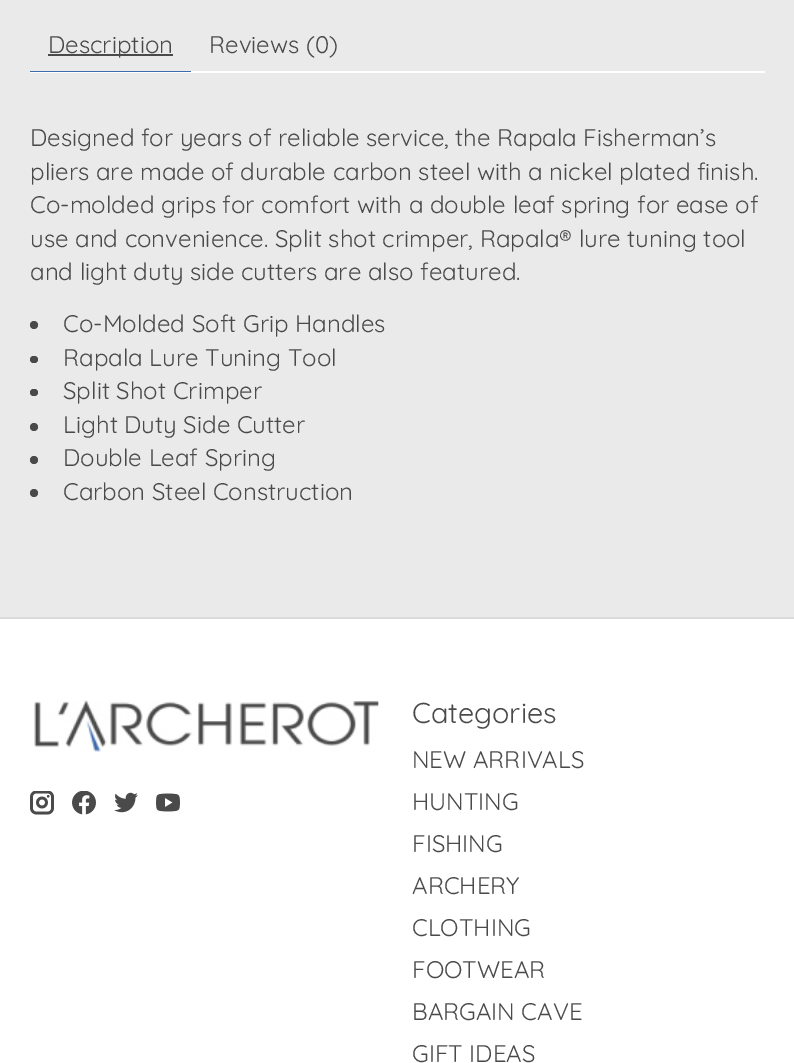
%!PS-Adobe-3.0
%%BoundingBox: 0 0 794 1063
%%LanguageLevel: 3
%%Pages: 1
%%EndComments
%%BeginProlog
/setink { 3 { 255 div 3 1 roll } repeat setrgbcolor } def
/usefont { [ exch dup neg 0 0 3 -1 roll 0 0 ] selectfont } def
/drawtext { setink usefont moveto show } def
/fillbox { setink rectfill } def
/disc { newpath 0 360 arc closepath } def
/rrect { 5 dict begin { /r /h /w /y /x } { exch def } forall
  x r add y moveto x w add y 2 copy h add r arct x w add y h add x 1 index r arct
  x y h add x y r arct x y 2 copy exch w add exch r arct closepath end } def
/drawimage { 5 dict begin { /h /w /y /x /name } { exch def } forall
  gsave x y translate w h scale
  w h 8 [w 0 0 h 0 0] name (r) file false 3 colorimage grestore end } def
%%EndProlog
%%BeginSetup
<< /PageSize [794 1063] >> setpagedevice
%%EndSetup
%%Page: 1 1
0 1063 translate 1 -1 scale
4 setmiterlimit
0 0 794 1063 234 234 234 fillbox
30 71 735 2 255 255 255 fillbox
30 71 161 1 61 107 173 fillbox
48 54 125 2 74 74 74 fillbox
(Description) 48 53 /Quicksand-Regular 24 74 74 74 drawtext
(Reviews \(0\)) 209 53 /Quicksand-Regular 24 74 74 74 drawtext
(Designed for years of reliable service, the Rapala Fisherman’s) 30 146 /Quicksand-Regular 24 74 74 74 drawtext
(pliers are made of durable carbon steel with a nickel plated finish.) 30 180 /Quicksand-Regular 24 74 74 74 drawtext
(Co-molded grips for comfort with a double leaf spring for ease of) 30 213 /Quicksand-Regular 24 74 74 74 drawtext
(use and convenience. Split shot crimper, Rapala® lure tuning tool) 30 247 /Quicksand-Regular 24 74 74 74 drawtext
(and light duty side cutters are also featured.) 30 280 /Quicksand-Regular 24 74 74 74 drawtext
34 325 4 disc fill
(Co-Molded Soft Grip Handles) 63 332 /Quicksand-Regular 24 74 74 74 drawtext
30 356 8 7 3.5 rrect fill
(Rapala Lure Tuning Tool) 63 366 /Quicksand-Regular 24 74 74 74 drawtext
30 389 8 7 3.5 rrect fill
(Split Shot Crimper) 63 399 /Quicksand-Regular 24 74 74 74 drawtext
34 427 4 disc fill
(Light Duty Side Cutter) 63 433 /Quicksand-Regular 24 74 74 74 drawtext
34 460 4 disc fill
(Double Leaf Spring) 63 466 /Quicksand-Regular 24 74 74 74 drawtext
34 493 4 disc fill
(Carbon Steel Construction) 63 500 /Quicksand-Regular 24 74 74 74 drawtext
0 619 794 444 255 255 255 fillbox
0 617 794 2 219 219 219 fillbox
(assets/img1.rgb) 34 700 345 52 drawimage
(assets/img2.rgb) 30 791 24 24 drawimage
(assets/img3.rgb) 72 791 24 24 drawimage
(assets/img4.rgb) 114 792 24 21 drawimage
(assets/img5.rgb) 156 793 24 19 drawimage
(Categories) 412 723 /Quicksand-Regular 28.75 74 74 74 drawtext
(NEW ARRIVALS) 412 768 /Quicksand-Regular 24 74 74 74 drawtext
(HUNTING) 412 810 /Quicksand-Regular 24 74 74 74 drawtext
(FISHING) 412 852 /Quicksand-Regular 24 74 74 74 drawtext
(ARCHERY) 412 894 /Quicksand-Regular 24 74 74 74 drawtext
(CLOTHING) 412 936 /Quicksand-Regular 24 74 74 74 drawtext
(FOOTWEAR) 412 978 /Quicksand-Regular 24 74 74 74 drawtext
(BARGAIN CAVE) 412 1020 /Quicksand-Regular 24 74 74 74 drawtext
(GIFT IDEAS) 412 1062 /Quicksand-Regular 24 74 74 74 drawtext
showpage
%%EOF
